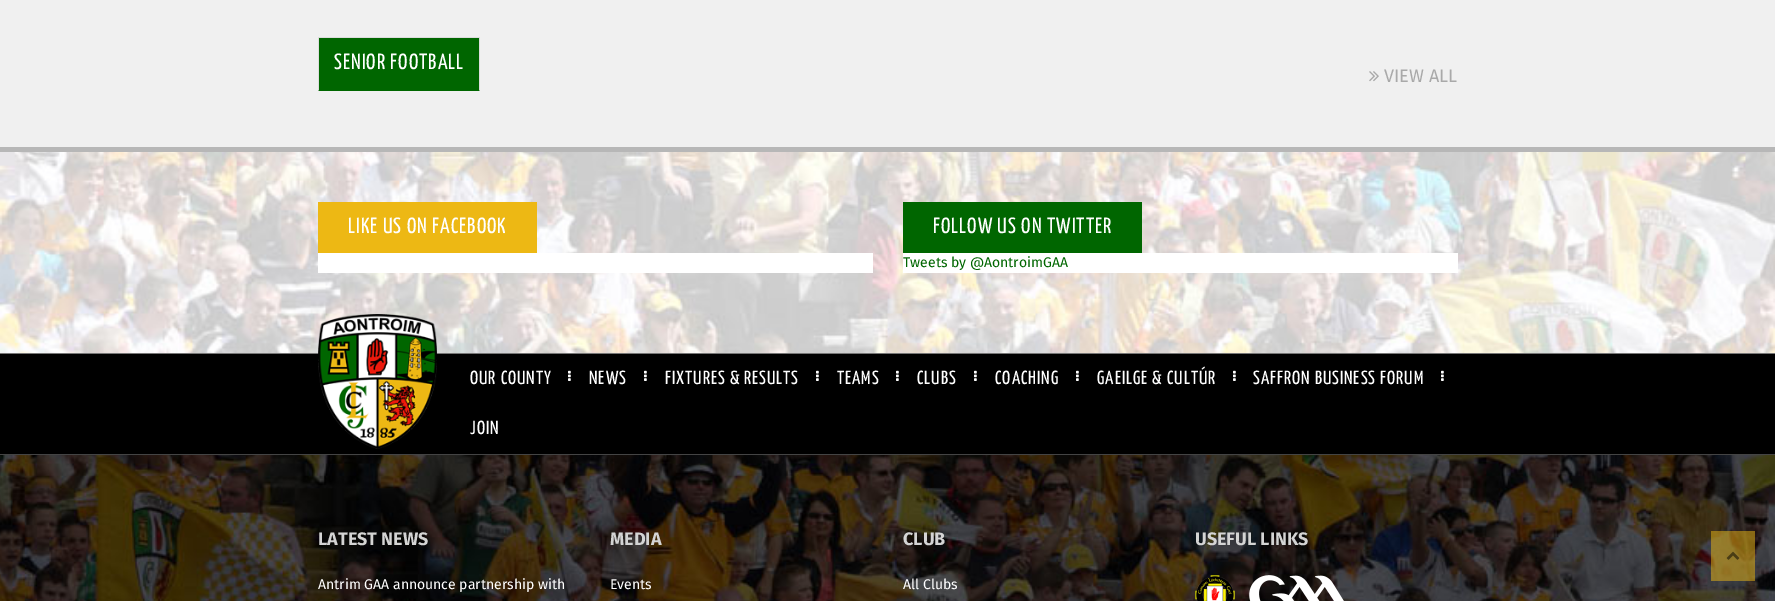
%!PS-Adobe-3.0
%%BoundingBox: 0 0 1775 601
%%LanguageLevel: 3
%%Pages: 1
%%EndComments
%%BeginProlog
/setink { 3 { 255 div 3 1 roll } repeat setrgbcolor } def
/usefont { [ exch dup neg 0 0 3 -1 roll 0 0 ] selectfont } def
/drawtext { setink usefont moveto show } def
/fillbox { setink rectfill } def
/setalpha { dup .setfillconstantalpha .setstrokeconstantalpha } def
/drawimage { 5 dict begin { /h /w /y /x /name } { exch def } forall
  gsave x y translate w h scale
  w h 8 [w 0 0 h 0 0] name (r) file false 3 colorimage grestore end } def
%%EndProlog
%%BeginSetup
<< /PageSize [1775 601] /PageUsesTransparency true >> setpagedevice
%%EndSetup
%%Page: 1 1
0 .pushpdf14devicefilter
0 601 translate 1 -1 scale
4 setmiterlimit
0 0 1775 601 240 240 240 fillbox
318 38 162 53 0 102 0 fillbox
318 37 162 1 221 221 221 fillbox
480 37 moveto 480 91 lineto 479 90 lineto 479 38 lineto closepath fill
318 91 moveto 318 37 lineto 319 38 lineto 319 90 lineto closepath fill
/YanoneKaffeesatz-Regular 22 usefont
255 255 255 setink
334 69 moveto 1 0 (SENIOR FOOTBALL) ashow
(assets/img1.rgb) 1369 71 10 11 drawimage
(VIEW ALL) 1384 82 /FiraSans-Regular 18 169 169 169 drawtext
(assets/img2.rgb) 0 152 1775 201 drawimage
0 147 1775 5 183 183 183 fillbox
318 202 219 51 237 184 20 fillbox
/YanoneKaffeesatz-Regular 22 usefont
255 255 255 setink
348 233 moveto 1 0 (LIKE US ON FACEBOOK) ashow
318 253 555 20 255 255 255 fillbox
903 202 239 51 0 102 0 fillbox
255 255 255 setink
933 233 moveto 1 0 (FOLLOW US ON TWITTER) ashow
903 253 555 20 255 255 255 fillbox
(Tweets by @AontroimGAA) 903 267 /FiraSans-Regular 14 0 102 0 drawtext
(assets/img3.rgb) 0 455 1775 146 drawimage
0 354 1775 100 0 0 0 fillbox
0 353 1775 1 119 119 119 fillbox
0 454 1775 1 68 68 68 fillbox
(assets/img4.rgb) 318 314 119 135 drawimage
/YanoneKaffeesatz-Regular 19 usefont
255 255 255 setink
470 384 moveto 1 0 (OUR COUNTY) ashow
(assets/img5.rgb) 568 370 3 11 drawimage
589 384 moveto 1 0 (NEWS) ashow
(assets/img5.rgb) 644 370 3 11 drawimage
665 384 moveto 1 0 (FIXTURES & RESULTS) ashow
(assets/img5.rgb) 816 370 3 11 drawimage
837 384 moveto 1 0 (TEAMS) ashow
(assets/img5.rgb) 896 370 3 11 drawimage
917 384 moveto 1 0 (CLUBS) ashow
(assets/img5.rgb) 974 370 3 11 drawimage
995 384 moveto 1 0 (COACHING) ashow
(assets/img5.rgb) 1076 370 3 11 drawimage
1097 384 moveto 1 0 (GAEILGE & CULTÚR) ashow
(assets/img5.rgb) 1233 370 3 11 drawimage
1253 384 moveto 1 0 (SAFFRON BUSINESS FORUM) ashow
(assets/img5.rgb) 1441 370 3 11 drawimage
470 434 moveto 1 0 (JOIN) ashow
(LATEST NEWS) 318 545 /FiraSans-Bold 18 212 212 212 drawtext
(Antrim GAA announce partnership with) 318 589 /FiraSans-Regular 14 255 255 255 drawtext
(MEDIA) 610 545 /FiraSans-Bold 18 212 212 212 drawtext
(Events) 610 589 /FiraSans-Regular 14 255 255 255 drawtext
(CLUB) 903 545 /FiraSans-Bold 18 212 212 212 drawtext
(All Clubs) 903 589 /FiraSans-Regular 14 255 255 255 drawtext
(USEFUL LINKS) 1195 545 /FiraSans-Bold 18 212 212 212 drawtext
(assets/img6.rgb) 1195 575 40 26 drawimage
(assets/img7.rgb) 1249 575 95 26 drawimage
0.5 setalpha
1711 531 44 50 237 184 20 fillbox
1 setalpha
(assets/img8.rgb) 1726 551 14 9 drawimage
.poppdf14devicefilter showpage
%%EOF
